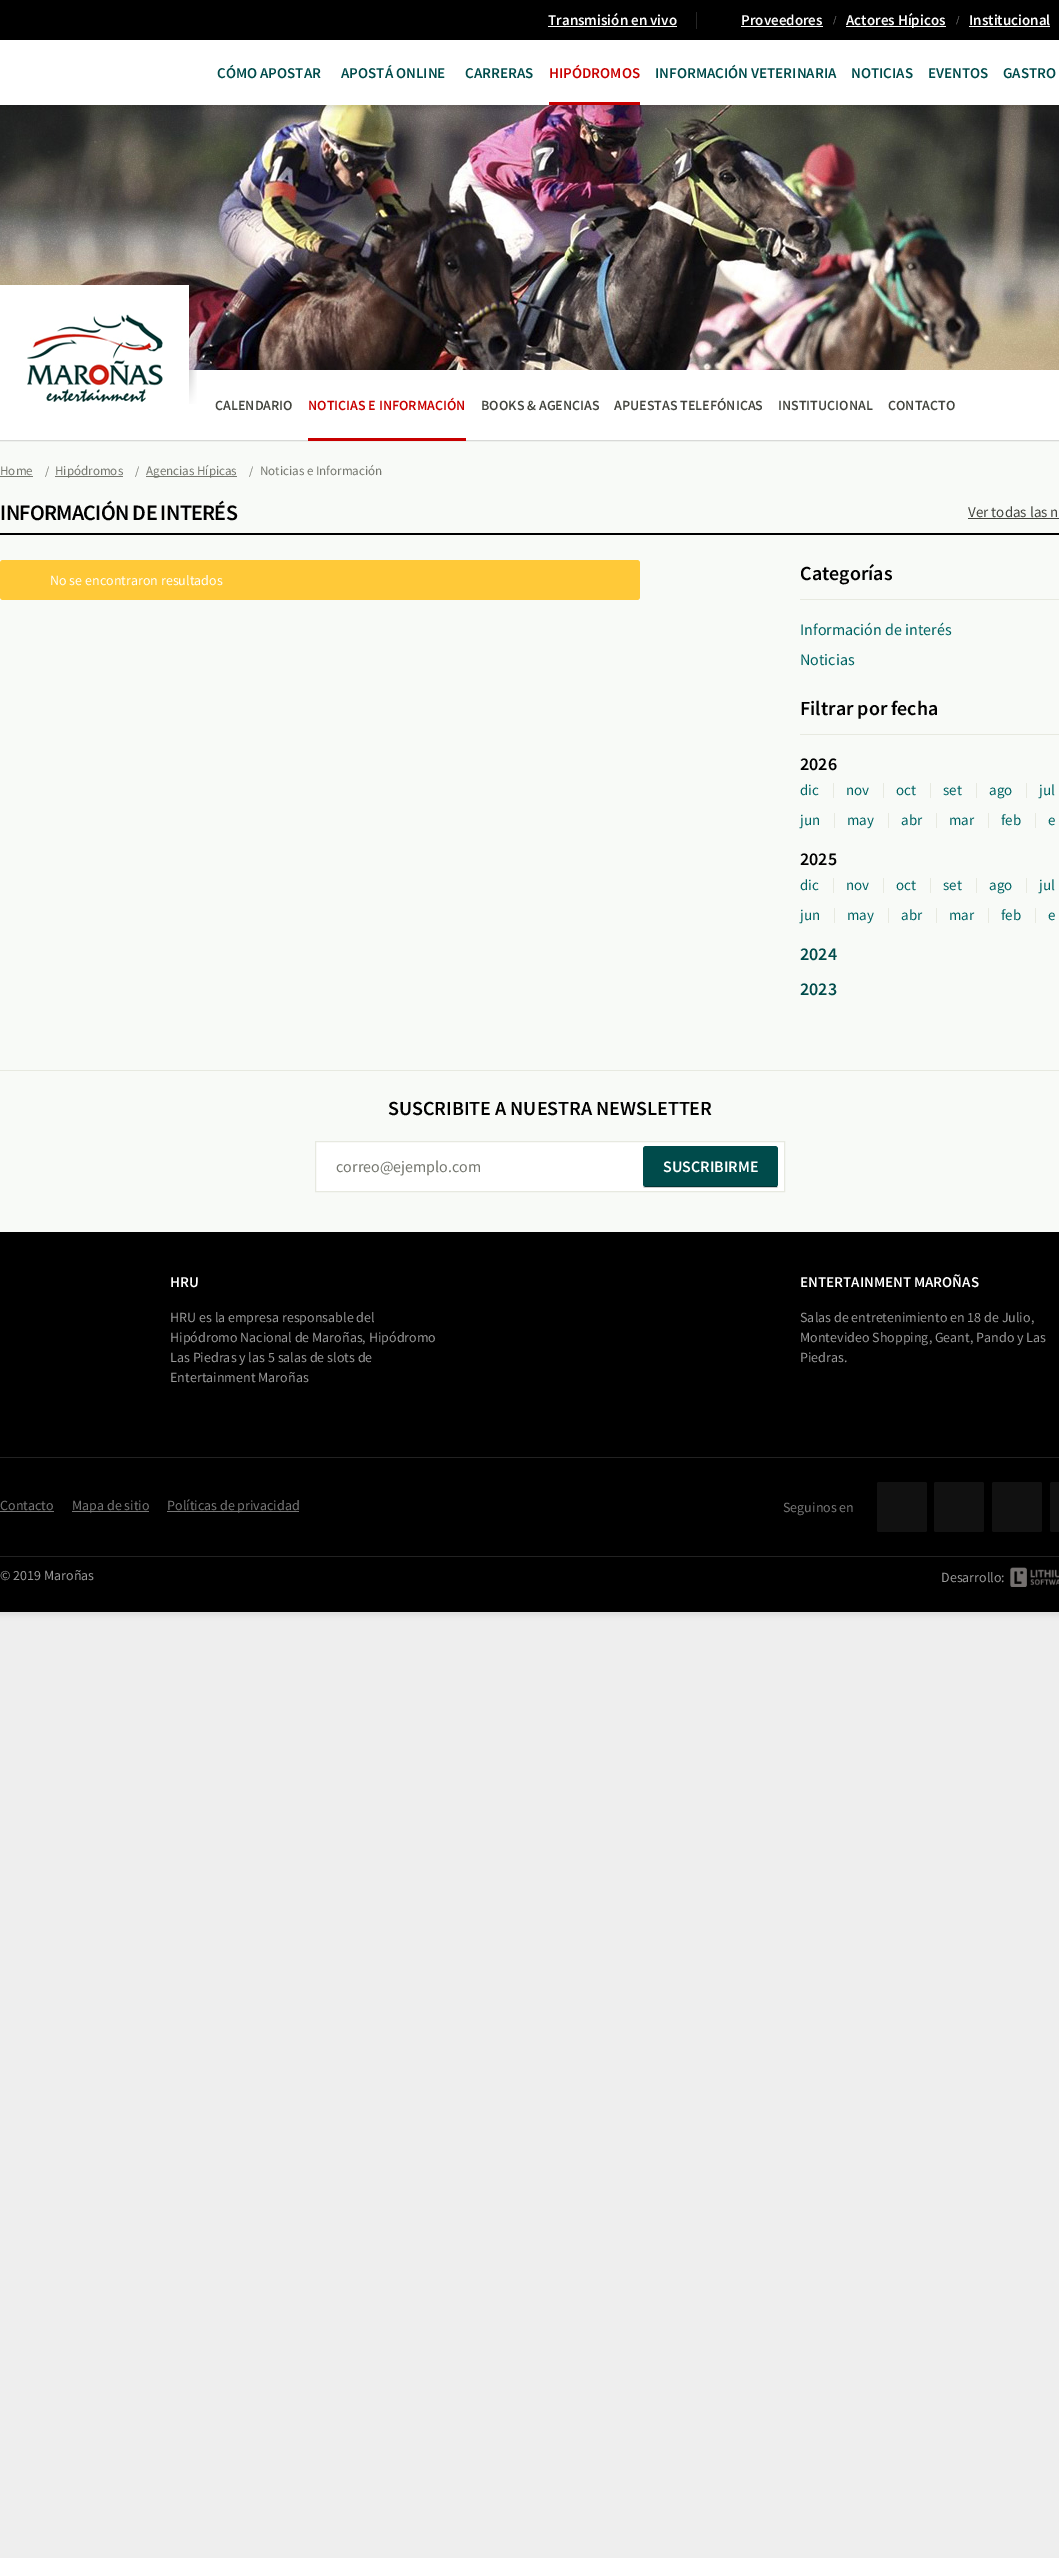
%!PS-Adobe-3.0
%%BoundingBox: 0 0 1059 2558
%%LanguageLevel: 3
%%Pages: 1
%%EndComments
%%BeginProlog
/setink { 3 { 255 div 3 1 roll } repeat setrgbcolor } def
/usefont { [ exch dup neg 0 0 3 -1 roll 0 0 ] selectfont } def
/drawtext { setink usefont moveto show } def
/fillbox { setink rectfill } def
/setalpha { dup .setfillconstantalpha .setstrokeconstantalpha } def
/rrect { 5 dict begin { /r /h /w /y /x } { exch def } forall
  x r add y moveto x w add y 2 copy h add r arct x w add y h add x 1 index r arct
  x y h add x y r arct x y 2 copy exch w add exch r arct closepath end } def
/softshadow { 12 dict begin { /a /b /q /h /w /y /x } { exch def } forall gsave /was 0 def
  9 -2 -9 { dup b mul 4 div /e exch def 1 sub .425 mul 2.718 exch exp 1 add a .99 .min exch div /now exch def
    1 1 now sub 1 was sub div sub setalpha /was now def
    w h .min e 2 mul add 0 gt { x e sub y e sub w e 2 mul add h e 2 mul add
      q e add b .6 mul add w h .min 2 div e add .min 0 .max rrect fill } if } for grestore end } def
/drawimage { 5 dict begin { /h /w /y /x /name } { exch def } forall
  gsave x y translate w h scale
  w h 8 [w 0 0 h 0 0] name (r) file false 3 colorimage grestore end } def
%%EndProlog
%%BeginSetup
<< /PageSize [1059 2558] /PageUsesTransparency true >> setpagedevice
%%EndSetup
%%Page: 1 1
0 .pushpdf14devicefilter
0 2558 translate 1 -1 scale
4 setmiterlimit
0 0 1059 2558 238 238 238 fillbox
221 221 221 setink
-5 -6 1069 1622 0 2.5 1 softshadow
0 440 1059 792 248 250 247 fillbox
(assets/img1.rgb) 0 105 1059 265 drawimage
0 0 0 setink
-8 -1 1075 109 0 2.5 0.15 softshadow
0 40 1059 65 255 255 255 fillbox
0 0 1059 40 0 0 0 fillbox
(Transmisión en vivo) 548 25 /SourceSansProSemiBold-SemiBold 15 255 255 255 drawtext
548 26 129 1 255 255 255 fillbox
696 12 1 17 38 38 38 fillbox
(Proveedores) 741 25 /SourceSansProSemiBold-SemiBold 15 255 255 255 drawtext
741 26 82 1 255 255 255 fillbox
(/) 833 23 /SourceSansPro-Regular 10 136 136 136 drawtext
846 26 100 1 255 255 255 fillbox
(Actores Hípicos) 846 25 /SourceSansProSemiBold-SemiBold 15 255 255 255 drawtext
(/) 956 23 /SourceSansPro-Regular 10 136 136 136 drawtext
(Institucional) 969 25 /SourceSansProSemiBold-SemiBold 15 255 255 255 drawtext
969 26 81 1 255 255 255 fillbox
(CÓMO APOSTAR) 217 78 /SourceSansProSemiBold-SemiBold 15 0 75 75 drawtext
(APOSTÁ ONLINE) 341 78 /SourceSansProSemiBold-SemiBold 15 0 75 75 drawtext
(CARRERAS) 465 78 /SourceSansProSemiBold-SemiBold 15 0 75 75 drawtext
(HIPÓDROMOS) 549 78 /SourceSansProSemiBold-SemiBold 15 200 0 0 drawtext
549 102 91 3 200 0 0 fillbox
(INFORMACIÓN VETERINARIA) 655 78 /SourceSansProSemiBold-SemiBold 15 0 75 75 drawtext
(NOTICIAS) 851 78 /SourceSansProSemiBold-SemiBold 15 0 75 75 drawtext
(EVENTOS) 928 78 /SourceSansProSemiBold-SemiBold 15 0 75 75 drawtext
(GASTRO) 1003 78 /SourceSansProSemiBold-SemiBold 15 0 75 75 drawtext
0 0 0 setink
-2 371 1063 70 0 0.5 0.15 softshadow
0 370 1059 70 255 255 255 fillbox
(assets/img2.rgb) 0 285 197 119 drawimage
(CALENDARIO) 215 410 /SourceSansProSemiBold-SemiBold 14 67 69 62 drawtext
(NOTICIAS E INFORMACIÓN) 308 410 /SourceSansProSemiBold-SemiBold 14 200 0 0 drawtext
308 438 158 3 200 0 0 fillbox
(BOOKS & AGENCIAS) 481 410 /SourceSansProSemiBold-SemiBold 14 67 69 62 drawtext
(APUESTAS TELEFÓNICAS) 614 410 /SourceSansProSemiBold-SemiBold 14 67 69 62 drawtext
(INSTITUCIONAL) 778 410 /SourceSansProSemiBold-SemiBold 14 67 69 62 drawtext
(CONTACTO) 888 410 /SourceSansProSemiBold-SemiBold 14 67 69 62 drawtext
(Home) 0 475 /SourceSansPro-Regular 13 118 120 112 drawtext
0 476 33 1 118 120 112 fillbox
(/) 45 475 /SourceSansPro-Regular 12 118 120 112 drawtext
55 476 68 1 118 120 112 fillbox
(Hipódromos) 55 475 /SourceSansPro-Regular 13 118 120 112 drawtext
(/) 135 475 /SourceSansPro-Regular 12 118 120 112 drawtext
146 476 91 1 118 120 112 fillbox
(Agencias Hípicas) 146 475 /SourceSansPro-Regular 13 118 120 112 drawtext
(/) 249 475 /SourceSansPro-Regular 12 118 120 112 drawtext
(Noticias e Información) 260 475 /SourceSansPro-Regular 13 118 120 112 drawtext
0 533 1059 2 0 0 0 fillbox
/SourceSansProSemiBold-SemiBold 22 usefont
0 520 moveto -0.7 0 (INFORMACIÓN DE INTERÉS) ashow
(Ver todas las n) 968 517 /SourceSansPro-Regular 15 67 69 62 drawtext
968 518 91 1 67 69 62 fillbox
255 201 56 setink
0 560 640 40 3 rrect fill
(No se encontraron resultados) 50 585 /SourceSansPro-Regular 14 255 255 255 drawtext
800 599 259 1 231 233 224 fillbox
(Categorías) 800 580 /SourceSansProSemiBold-SemiBold 20 0 0 0 drawtext
(Información de interés) 800 635 /SourceSansPro-Regular 16 0 100 100 drawtext
(Noticias) 800 665 /SourceSansPro-Regular 16 0 100 100 drawtext
800 734 259 1 231 233 224 fillbox
(Filtrar por fecha) 800 715 /SourceSansProSemiBold-SemiBold 20 0 0 0 drawtext
(2026) 800 770 /SourceSansProSemiBold-SemiBold 18 0 0 0 drawtext
(dic) 800 795 /SourceSansPro-Regular 15 0 100 100 drawtext
833 783 1 15 231 233 224 fillbox
(nov) 846 795 /SourceSansPro-Regular 15 0 100 100 drawtext
883 783 1 15 231 233 224 fillbox
(oct) 896 795 /SourceSansPro-Regular 15 0 100 100 drawtext
930 783 1 15 231 233 224 fillbox
(set) 943 795 /SourceSansPro-Regular 15 0 100 100 drawtext
976 783 1 15 231 233 224 fillbox
(ago) 989 795 /SourceSansPro-Regular 15 0 100 100 drawtext
1026 783 1 15 231 233 224 fillbox
(jul) 1039 795 /SourceSansPro-Regular 15 0 100 100 drawtext
(jun) 800 825 /SourceSansPro-Regular 15 0 100 100 drawtext
834 813 1 15 231 233 224 fillbox
(may) 847 825 /SourceSansPro-Regular 15 0 100 100 drawtext
888 813 1 15 231 233 224 fillbox
(abr) 901 825 /SourceSansPro-Regular 15 0 100 100 drawtext
936 813 1 15 231 233 224 fillbox
(mar) 949 825 /SourceSansPro-Regular 15 0 100 100 drawtext
988 813 1 15 231 233 224 fillbox
(feb) 1001 825 /SourceSansPro-Regular 15 0 100 100 drawtext
1035 813 1 15 231 233 224 fillbox
(e) 1048 825 /SourceSansPro-Regular 15 0 100 100 drawtext
(2025) 800 865 /SourceSansProSemiBold-SemiBold 18 0 0 0 drawtext
(dic) 800 890 /SourceSansPro-Regular 15 0 100 100 drawtext
833 878 1 15 231 233 224 fillbox
(nov) 846 890 /SourceSansPro-Regular 15 0 100 100 drawtext
883 878 1 15 231 233 224 fillbox
(oct) 896 890 /SourceSansPro-Regular 15 0 100 100 drawtext
930 878 1 15 231 233 224 fillbox
(set) 943 890 /SourceSansPro-Regular 15 0 100 100 drawtext
976 878 1 15 231 233 224 fillbox
(ago) 989 890 /SourceSansPro-Regular 15 0 100 100 drawtext
1026 878 1 15 231 233 224 fillbox
(jul) 1039 890 /SourceSansPro-Regular 15 0 100 100 drawtext
(jun) 800 920 /SourceSansPro-Regular 15 0 100 100 drawtext
834 908 1 15 231 233 224 fillbox
(may) 847 920 /SourceSansPro-Regular 15 0 100 100 drawtext
888 908 1 15 231 233 224 fillbox
(abr) 901 920 /SourceSansPro-Regular 15 0 100 100 drawtext
936 908 1 15 231 233 224 fillbox
(mar) 949 920 /SourceSansPro-Regular 15 0 100 100 drawtext
988 908 1 15 231 233 224 fillbox
(feb) 1001 920 /SourceSansPro-Regular 15 0 100 100 drawtext
1035 908 1 15 231 233 224 fillbox
(e) 1048 920 /SourceSansPro-Regular 15 0 100 100 drawtext
(2024) 800 960 /SourceSansProSemiBold-SemiBold 18 0 75 75 drawtext
(2023) 800 995 /SourceSansProSemiBold-SemiBold 18 0 75 75 drawtext
0 1070 1059 1 231 233 224 fillbox
(SUSCRIBITE A NUESTRA NEWSLETTER) 388 1115 /SourceSansProSemiBold-SemiBold 20 0 0 0 drawtext
255 255 255 setink
315.5 1141.5 moveto 784.5 1141.5 lineto 784.5 1191.5 lineto 315.5 1191.5 lineto closepath gsave fill grestore
231 233 224 setink
stroke
(correo@ejemplo.com) 336 1172 /SourceSansPro-Regular 16 118 120 112 drawtext
204 204 204 setink
643 1184 moveto 643 1186 643 1188 645 1188 curveto 776 1188 lineto 778 1188 778 1186 778 1184 curveto 778 1186 777 1187 775 1187 curveto 646 1187 lineto 644 1187 643 1186 643 1184 curveto closepath fill
0 75 75 setink
643 1146 135 41 3 rrect fill
645 1186 132 1 0 50 50 fillbox
(SUSCRIBIRME) 663 1172 /SourceSansProSemiBold-SemiBold 16 255 255 255 drawtext
0 1232 1059 380 0 0 0 fillbox
(HRU) 170 1287 /SourceSansProSemiBold-SemiBold 15 255 255 255 drawtext
(HRU es la empresa responsable del) 170 1322 /SourceSansPro-Regular 14 153 153 153 drawtext
(Hipódromo Nacional de Maroñas, Hipódromo) 170 1342 /SourceSansPro-Regular 14 153 153 153 drawtext
(Las Piedras y las 5 salas de slots de) 170 1362 /SourceSansPro-Regular 14 153 153 153 drawtext
(Entertainment Maroñas) 170 1382 /SourceSansPro-Regular 14 153 153 153 drawtext
(ENTERTAINMENT MAROÑAS) 800 1287 /SourceSansProSemiBold-SemiBold 15 255 255 255 drawtext
(Salas de entretenimiento en 18 de Julio,) 800 1322 /SourceSansPro-Regular 14 153 153 153 drawtext
(Montevideo Shopping, Geant, Pando y Las) 800 1342 /SourceSansPro-Regular 14 153 153 153 drawtext
(Piedras.) 800 1362 /SourceSansPro-Regular 14 153 153 153 drawtext
0 1457 1059 1 34 34 34 fillbox
(Contacto) 0 1510 /SourceSansPro-Regular 14 119 119 119 drawtext
0 1511 54 1 119 119 119 fillbox
72 1511 77 1 119 119 119 fillbox
(Mapa de sitio) 72 1510 /SourceSansPro-Regular 14 119 119 119 drawtext
167 1511 132 1 119 119 119 fillbox
(Políticas de privacidad) 167 1510 /SourceSansPro-Regular 14 119 119 119 drawtext
(Seguinos en) 783 1512 /SourceSansPro-Regular 14 119 119 119 drawtext
17 17 17 setink
877 1482 50 50 2 rrect fill
934 1482 50 50 2 rrect fill
992 1482 50 50 2 rrect fill
1052 1482 moveto 1059 1482 lineto 1059 1532 lineto 1052 1532 lineto 1051 1532 1050 1531 1050 1530 curveto 1050 1484 lineto 1050 1483 1051 1482 1052 1482 curveto closepath fill
0 1556 1059 1 34 34 34 fillbox
(© 2019 Maroñas) 0 1580 /SourceSansPro-Regular 14 153 153 153 drawtext
(Desarrollo:) 941 1582 /SourceSansPro-Regular 14 153 153 153 drawtext
(assets/img3.rgb) 1010 1567 49 20 drawimage
.poppdf14devicefilter showpage
%%EOF
